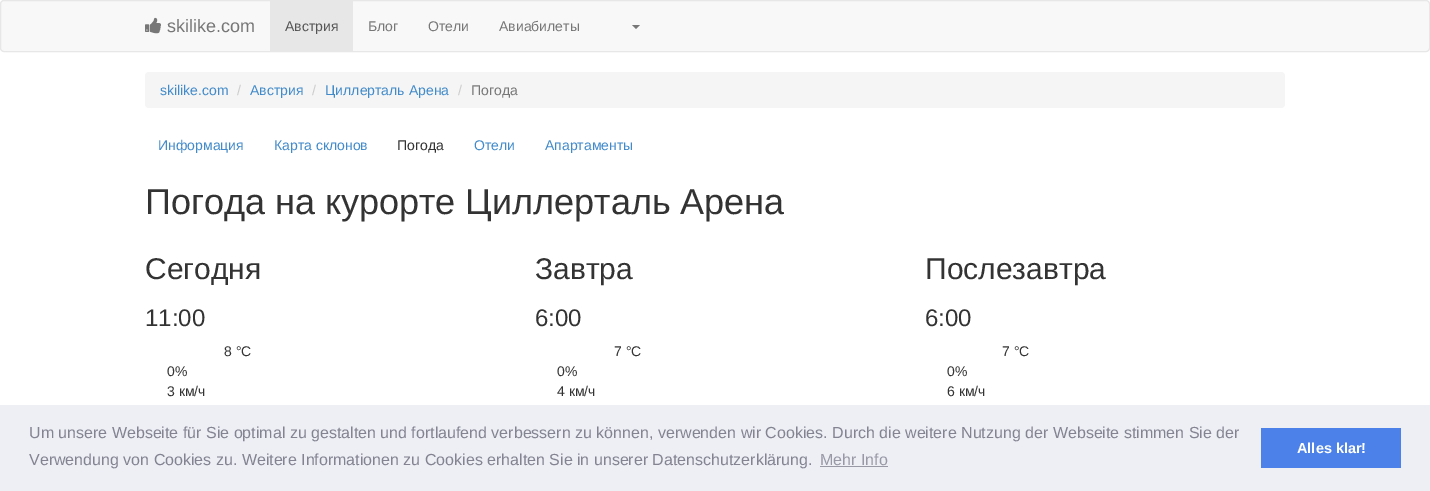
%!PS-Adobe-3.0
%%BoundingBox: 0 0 1430 491
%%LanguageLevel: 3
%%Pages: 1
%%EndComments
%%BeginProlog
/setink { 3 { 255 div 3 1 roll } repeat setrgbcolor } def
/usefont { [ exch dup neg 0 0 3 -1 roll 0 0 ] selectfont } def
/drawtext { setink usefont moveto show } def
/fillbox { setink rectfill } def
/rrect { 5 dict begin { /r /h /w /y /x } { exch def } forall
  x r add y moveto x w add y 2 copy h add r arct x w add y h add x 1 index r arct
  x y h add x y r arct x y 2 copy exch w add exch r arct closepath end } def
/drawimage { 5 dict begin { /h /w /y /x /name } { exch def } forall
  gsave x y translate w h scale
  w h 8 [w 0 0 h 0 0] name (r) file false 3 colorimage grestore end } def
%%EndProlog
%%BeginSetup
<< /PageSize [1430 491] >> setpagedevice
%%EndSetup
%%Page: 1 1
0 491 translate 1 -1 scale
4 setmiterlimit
0 0 1430 491 255 255 255 fillbox
248 248 248 setink
0.5 0.5 1429 51 3.5 rrect gsave fill grestore
231 231 231 setink
stroke
(assets/img1.rgb) 145 17 16 17 drawimage
(skilike.com) 167 32 /LiberationSans-Regular 18 119 119 119 drawtext
270 1 83 50 231 231 231 fillbox
(Австрия) 285 31 /LiberationSans-Regular 14 85 85 85 drawtext
(Блог) 368 31 /LiberationSans-Regular 14 119 119 119 drawtext
(Отели) 428 31 /LiberationSans-Regular 14 119 119 119 drawtext
(Авиабилеты) 499 31 /LiberationSans-Regular 14 119 119 119 drawtext
632 25 moveto 640 25 lineto 636 29 lineto closepath fill
245 245 245 setink
145 72 1140 36 4 rrect fill
(skilike.com) 160 95 /LiberationSans-Regular 14 66 139 202 drawtext
(/) 237 95 /LiberationSans-Regular 14 204 204 204 drawtext
(Австрия) 250 95 /LiberationSans-Regular 14 66 139 202 drawtext
(/) 312 95 /LiberationSans-Regular 14 204 204 204 drawtext
(Циллерталь Арена) 325 95 /LiberationSans-Regular 14 66 139 202 drawtext
(/) 458 95 /LiberationSans-Regular 14 204 204 204 drawtext
(Погода) 471 95 /LiberationSans-Regular 14 119 119 119 drawtext
(Информация) 158 150 /LiberationSans-Regular 14 66 139 202 drawtext
(Карта склонов) 274 150 /LiberationSans-Regular 14 66 139 202 drawtext
(Погода) 397 150 /LiberationSans-Regular 14 51 51 51 drawtext
(Отели) 474 150 /LiberationSans-Regular 14 66 139 202 drawtext
(Апартаменты) 545 150 /LiberationSans-Regular 14 66 139 202 drawtext
(Погода на курорте Циллерталь Арена) 145 214 /LiberationSans-Regular 36 51 51 51 drawtext
(Сегодня) 145 279 /LiberationSans-Regular 30 51 51 51 drawtext
(11:00) 145 326 /LiberationSans-Regular 24 51 51 51 drawtext
(8 °C) 224 356 /LiberationSans-Regular 14 51 51 51 drawtext
(0%) 167 376 /LiberationSans-Regular 14 51 51 51 drawtext
(3 км/ч) 167 396 /LiberationSans-Regular 14 51 51 51 drawtext
(Завтра) 535 279 /LiberationSans-Regular 30 51 51 51 drawtext
(6:00) 535 326 /LiberationSans-Regular 24 51 51 51 drawtext
(7 °C) 614 356 /LiberationSans-Regular 14 51 51 51 drawtext
(0%) 557 376 /LiberationSans-Regular 14 51 51 51 drawtext
(4 км/ч) 557 396 /LiberationSans-Regular 14 51 51 51 drawtext
(Послезавтра) 925 279 /LiberationSans-Regular 30 51 51 51 drawtext
(6:00) 925 326 /LiberationSans-Regular 24 51 51 51 drawtext
(7 °C) 1002 356 /LiberationSans-Regular 14 51 51 51 drawtext
(0%) 947 376 /LiberationSans-Regular 14 51 51 51 drawtext
(6 км/ч) 947 396 /LiberationSans-Regular 14 51 51 51 drawtext
0 405 1430 86 237 239 245 fillbox
(Um unsere Webseite für Sie optimal zu gestalten und fortlaufend verbessern zu können, verwenden wir Cookies. Durch die weitere Nutzung der Webseite stimmen Sie der) 29 438 /LiberationSans-Regular 16 131 131 145 drawtext
(Verwendung von Cookies zu. Weitere Informationen zu Cookies erhalten Sie in unserer Datenschutzerklärung.) 29 465 /LiberationSans-Regular 16 131 131 145 drawtext
(Mehr Info) 820 465 /LiberationSans-Regular 16 152 153 165 drawtext
820 466 68 1 152 153 165 fillbox
1261 428 140 40 75 129 232 fillbox
(Alles klar!) 1297 453 /LiberationSans-Bold 14.5 255 255 255 drawtext
showpage
%%EOF
